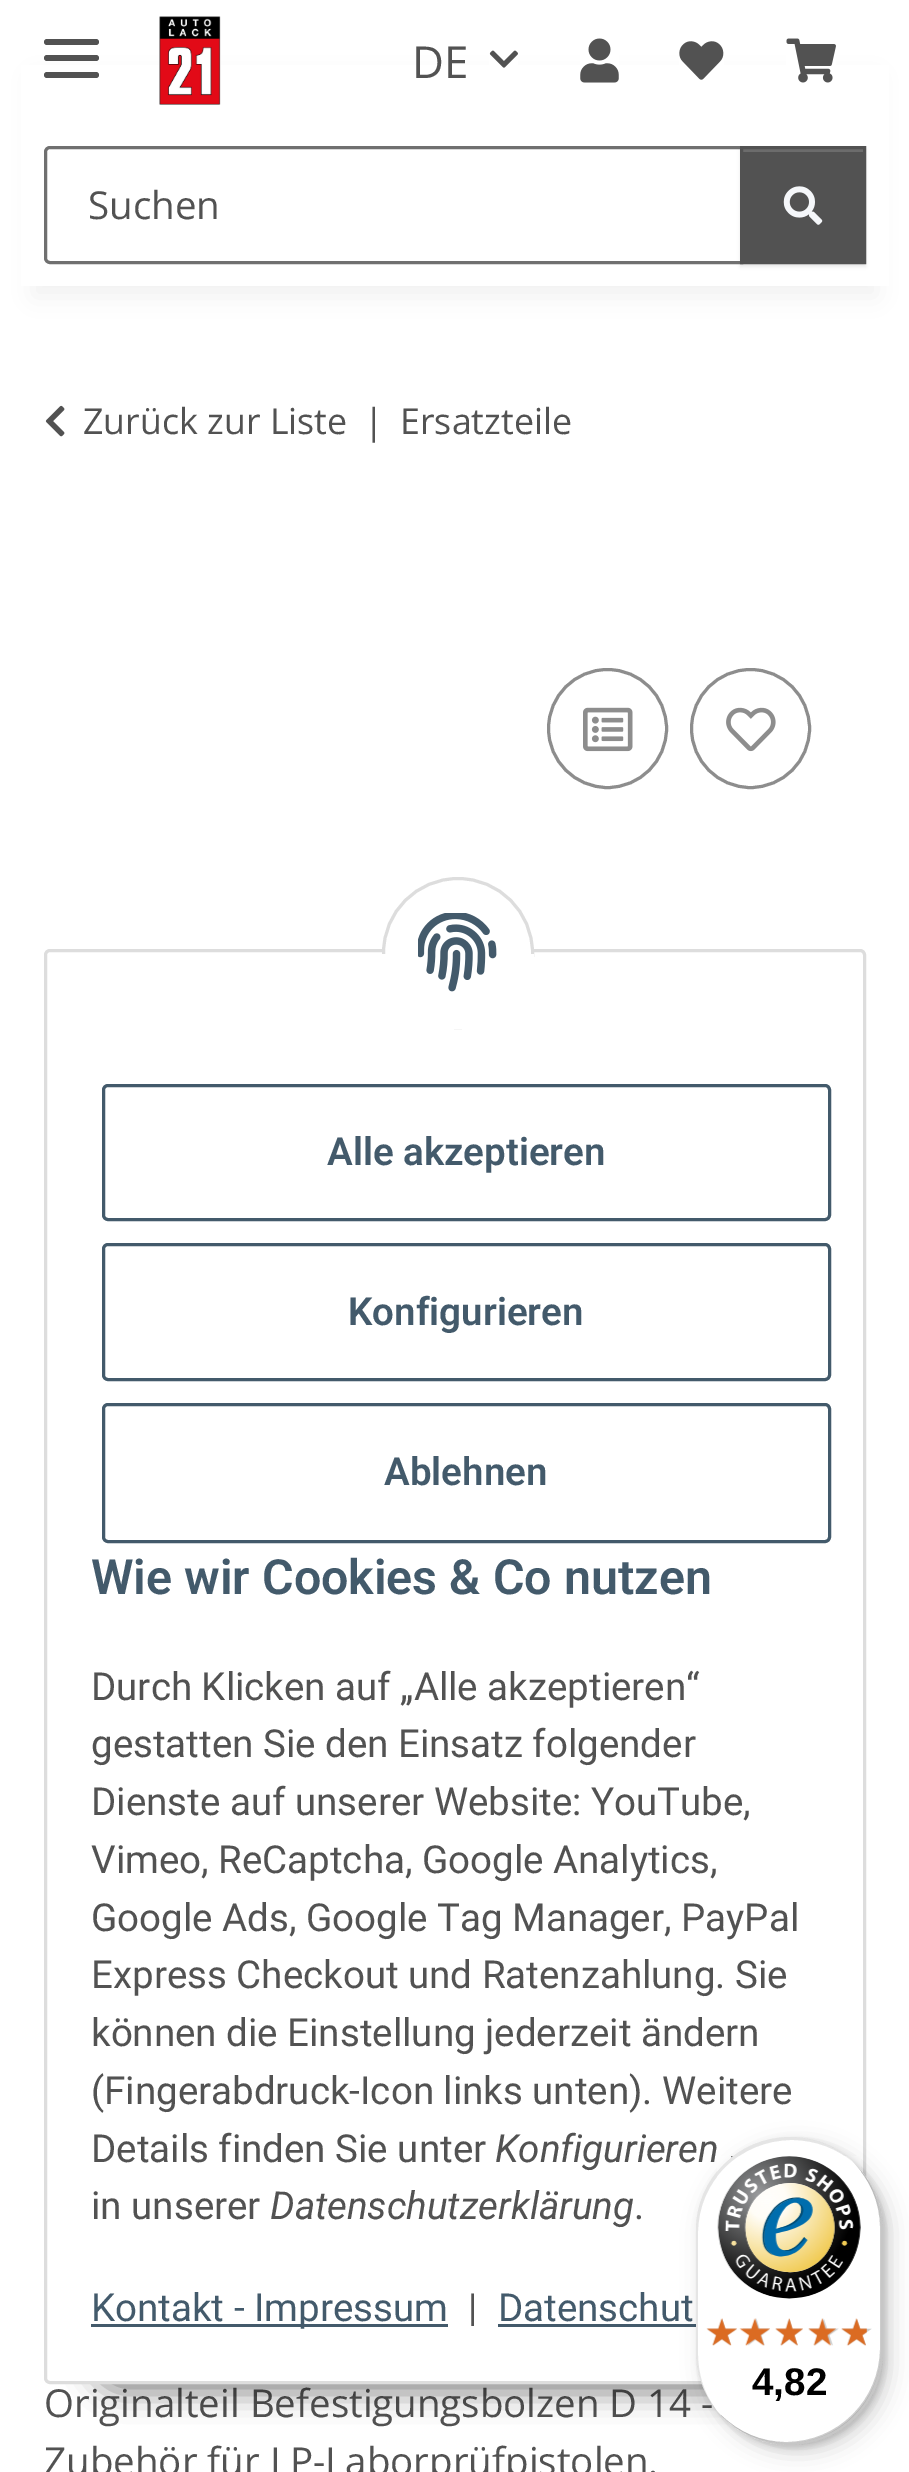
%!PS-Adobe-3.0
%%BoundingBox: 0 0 909 2472
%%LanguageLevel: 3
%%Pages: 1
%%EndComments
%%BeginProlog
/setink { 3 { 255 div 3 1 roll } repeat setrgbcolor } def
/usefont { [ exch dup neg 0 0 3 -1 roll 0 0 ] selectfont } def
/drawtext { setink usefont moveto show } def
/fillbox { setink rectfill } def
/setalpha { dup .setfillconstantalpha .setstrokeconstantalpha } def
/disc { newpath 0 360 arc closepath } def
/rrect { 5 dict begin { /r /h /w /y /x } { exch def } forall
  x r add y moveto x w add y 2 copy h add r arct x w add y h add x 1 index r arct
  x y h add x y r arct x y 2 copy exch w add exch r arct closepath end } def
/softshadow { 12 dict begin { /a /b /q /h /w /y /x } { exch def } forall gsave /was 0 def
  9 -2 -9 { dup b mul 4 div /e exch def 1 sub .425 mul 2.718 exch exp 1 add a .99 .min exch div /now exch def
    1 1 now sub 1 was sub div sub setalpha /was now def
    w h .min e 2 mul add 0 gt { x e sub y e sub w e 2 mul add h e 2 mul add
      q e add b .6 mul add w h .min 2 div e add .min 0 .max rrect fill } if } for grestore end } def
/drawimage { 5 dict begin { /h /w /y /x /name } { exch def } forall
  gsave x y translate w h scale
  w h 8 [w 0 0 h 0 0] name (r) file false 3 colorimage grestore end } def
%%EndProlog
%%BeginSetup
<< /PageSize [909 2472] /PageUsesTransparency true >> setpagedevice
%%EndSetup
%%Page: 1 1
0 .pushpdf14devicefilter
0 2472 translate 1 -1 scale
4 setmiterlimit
0 0 909 2472 255 255 255 fillbox
0 0 0 setink
33 77 844 220 0 12.5 0.06 softshadow
21 65 868 221 255 255 255 fillbox
82 82 82 setink
44 55 55 6 3 rrect fill
44 39 55 6 3 rrect fill
44 72 55 6 3 rrect fill
(assets/img1.rgb) 159 16 62 89 drawimage
(DE) 412 78 /OpenSans-Regular 44 82 82 82 drawtext
(assets/img2.rgb) 489 50 29 18 drawimage
(assets/img3.rgb) 580 38 39 45 drawimage
(assets/img4.rgb) 679 41 45 39 drawimage
(assets/img5.rgb) 786 38 50 45 drawimage
112 112 112 setink
3 setlinewidth
50 147.5 moveto 741.5 147.5 lineto 741.5 262.5 lineto 50 262.5 lineto 47.5 262.5 45.5 260.5 45.5 258 curveto 45.5 152 lineto 45.5 149.5 47.5 147.5 50 147.5 curveto closepath stroke
(Suchen) 88 219 /OpenSans-Regular 38.5 82 82 82 drawtext
0 0 0 setink
740 149 126 118 0 1.5 0.07 softshadow
743 152 120 109 82 82 82 fillbox
743 149 121 3 108 108 108 fillbox
82 82 82 setink
741.5 147.5 123 115 rectstroke
(assets/img6.rgb) 783 186 40 39 drawimage
(assets/img7.rgb) 45 405 20 32 drawimage
(Zurück zur Liste) 83 434 /OpenSans-Regular 35.75 82 82 82 drawtext
(|) 364 434 /OpenSans-Regular 35.75 82 82 82 drawtext
(Ersatzteile) 400 434 /OpenSans-Regular 35.75 82 82 82 drawtext
141 141 141 setink
607.5 728.5 59 disc stroke
(assets/img8.rgb) 583 707 50 45 drawimage
750.5 728.5 59 disc stroke
(assets/img9.rgb) 726 707 50 45 drawimage
(Originalteil Befestigungsbolzen D 14 -) 44 2417 /OpenSans-Regular 38.5 82 82 82 drawtext
(Zubehör für LP-Laborprüfpistolen.) 44 2475 /OpenSans-Regular 38.5 82 82 82 drawtext
0 0 0 setink
88 2305 734 88 44 14 0.45 softshadow
255 255 255 setink
45.5 950.5 819 1432 4.5 rrect gsave fill grestore
221 221 221 setink
stroke
255 255 255 setink
458 953 74.5 disc gsave fill grestore
221 221 221 setink
stroke
382 954 152 75 255 255 255 fillbox
(assets/img10.rgb) 418 913 79 79 drawimage
67 90 107 setink
103.5 1085.5 726 134 4.5 rrect stroke
(Alle akzeptieren) 327 1165 /Roboto-SemiBold 38.5 67 90 107 drawtext
103.5 1244.5 726 135 4.5 rrect stroke
(Konfigurieren) 348 1325 /Roboto-SemiBold 38.5 67 90 107 drawtext
103.5 1404.5 726 137 4.5 rrect stroke
(Ablehnen) 384 1485 /Roboto-SemiBold 38.5 67 90 107 drawtext
(Wie wir Cookies & Co nutzen) 91 1594 /Roboto-SemiBold 48.4 67 90 107 drawtext
(Durch Klicken auf „Alle akzeptieren“) 91 1700 /Roboto-Regular 38.5 82 82 82 drawtext
(gestatten Sie den Einsatz folgender) 91 1757 /Roboto-Regular 38.5 82 82 82 drawtext
(Dienste auf unserer Website: YouTube,) 91 1815 /Roboto-Regular 38.5 82 82 82 drawtext
(Vimeo, ReCaptcha, Google Analytics,) 91 1873 /Roboto-Regular 38.5 82 82 82 drawtext
(Google Ads, Google Tag Manager, PayPal) 91 1931 /Roboto-Regular 38.5 82 82 82 drawtext
(Express Checkout und Ratenzahlung. Sie) 91 1988 /Roboto-Regular 38.5 82 82 82 drawtext
(können die Einstellung jederzeit ändern) 91 2046 /Roboto-Regular 38.5 82 82 82 drawtext
(\(Fingerabdruck-Icon links unten\). Weitere) 91 2104 /Roboto-Regular 38.5 82 82 82 drawtext
(Details finden Sie unter) 91 2162 /Roboto-Regular 38.5 82 82 82 drawtext
(Konfigurieren) 495 2162 /Roboto-Italic 38.5 82 82 82 drawtext
(in unserer) 91 2219 /Roboto-Regular 38.5 82 82 82 drawtext
(Datenschutzerklärung) 270 2219 /Roboto-Italic 38.5 82 82 82 drawtext
(.) 634 2219 /Roboto-Regular 38.5 82 82 82 drawtext
91 2324 357 3 67 90 107 fillbox
(Kontakt - Impressum) 91 2321 /Roboto-Regular 38.5 67 90 107 drawtext
(|) 468 2321 /Roboto-Regular 38.5 82 82 82 drawtext
(Datenschut) 498 2321 /Roboto-Regular 38.5 67 90 107 drawtext
498 2324 198 3 67 90 107 fillbox
0 0 0 setink
704 2145 187 308 93.5 11 0.15 softshadow
699 2140 187 308 93.5 3 0.15 softshadow
255 255 255 setink
696 2137 187 308 93.5 rrect fill
0.1 setalpha
0 0 0 setink
792 2140 moveto 816 2140 838 2149 854 2163 curveto 838 2147 815 2137 790 2137 curveto 738 2137 696 2179 696 2230 curveto 696 2352 lineto 696 2373 703 2392 715 2408 curveto 704 2393 698 2374 698 2354 curveto 698 2233 lineto 698 2181 740 2140 792 2140 curveto closepath fill
0.2 setalpha
721 2415 moveto 738 2433 762 2445 790 2445 curveto 841 2445 883 2403 883 2352 curveto 883 2230 lineto 883 2203 871 2178 851 2160 curveto 869 2178 880 2201 880 2228 curveto 880 2348 lineto 880 2400 838 2442 786 2442 curveto 761 2442 738 2432 721 2415 curveto closepath fill
50 50 50 setink
721 2415 moveto 738 2433 762 2445 790 2445 curveto 841 2445 883 2403 883 2352 curveto 883 2230 lineto 883 2203 871 2179 853 2162 curveto 870 2179 881 2203 881 2229 curveto 881 2350 lineto 881 2401 839 2443 788 2443 curveto 762 2443 738 2432 721 2415 curveto closepath fill
0.3 setalpha
255 255 255 setink
726 2420 moveto 743 2436 765 2445 790 2445 curveto 841 2445 883 2403 883 2352 curveto 883 2230 lineto 883 2206 874 2184 858 2167 curveto 873 2184 881 2205 881 2229 curveto 881 2350 lineto 881 2402 840 2443 788 2443 curveto 764 2443 743 2435 726 2420 curveto closepath fill
1 setalpha
(assets/img11.rgb) 717 2156 144 143 drawimage
(assets/img17.rgb) 707 2319 30 26 drawimage
(assets/img12.rgb) 706 2318 31 28 drawimage
(assets/img18.rgb) 742 2318 28 28 drawimage
(assets/img13.rgb) 739 2318 31 28 drawimage
(assets/img19.rgb) 775 2319 28 27 drawimage
(assets/img14.rgb) 775 2318 28 28 drawimage
(assets/img20.rgb) 808 2318 31 28 drawimage
(assets/img15.rgb) 808 2318 28 28 drawimage
(assets/img21.rgb) 841 2319 31 27 drawimage
(assets/img16.rgb) 841 2318 26 28 drawimage
(4,82) 752 2395 /LiberationSans-Bold 38.5 0 0 0 drawtext
.poppdf14devicefilter showpage
%%EOF
